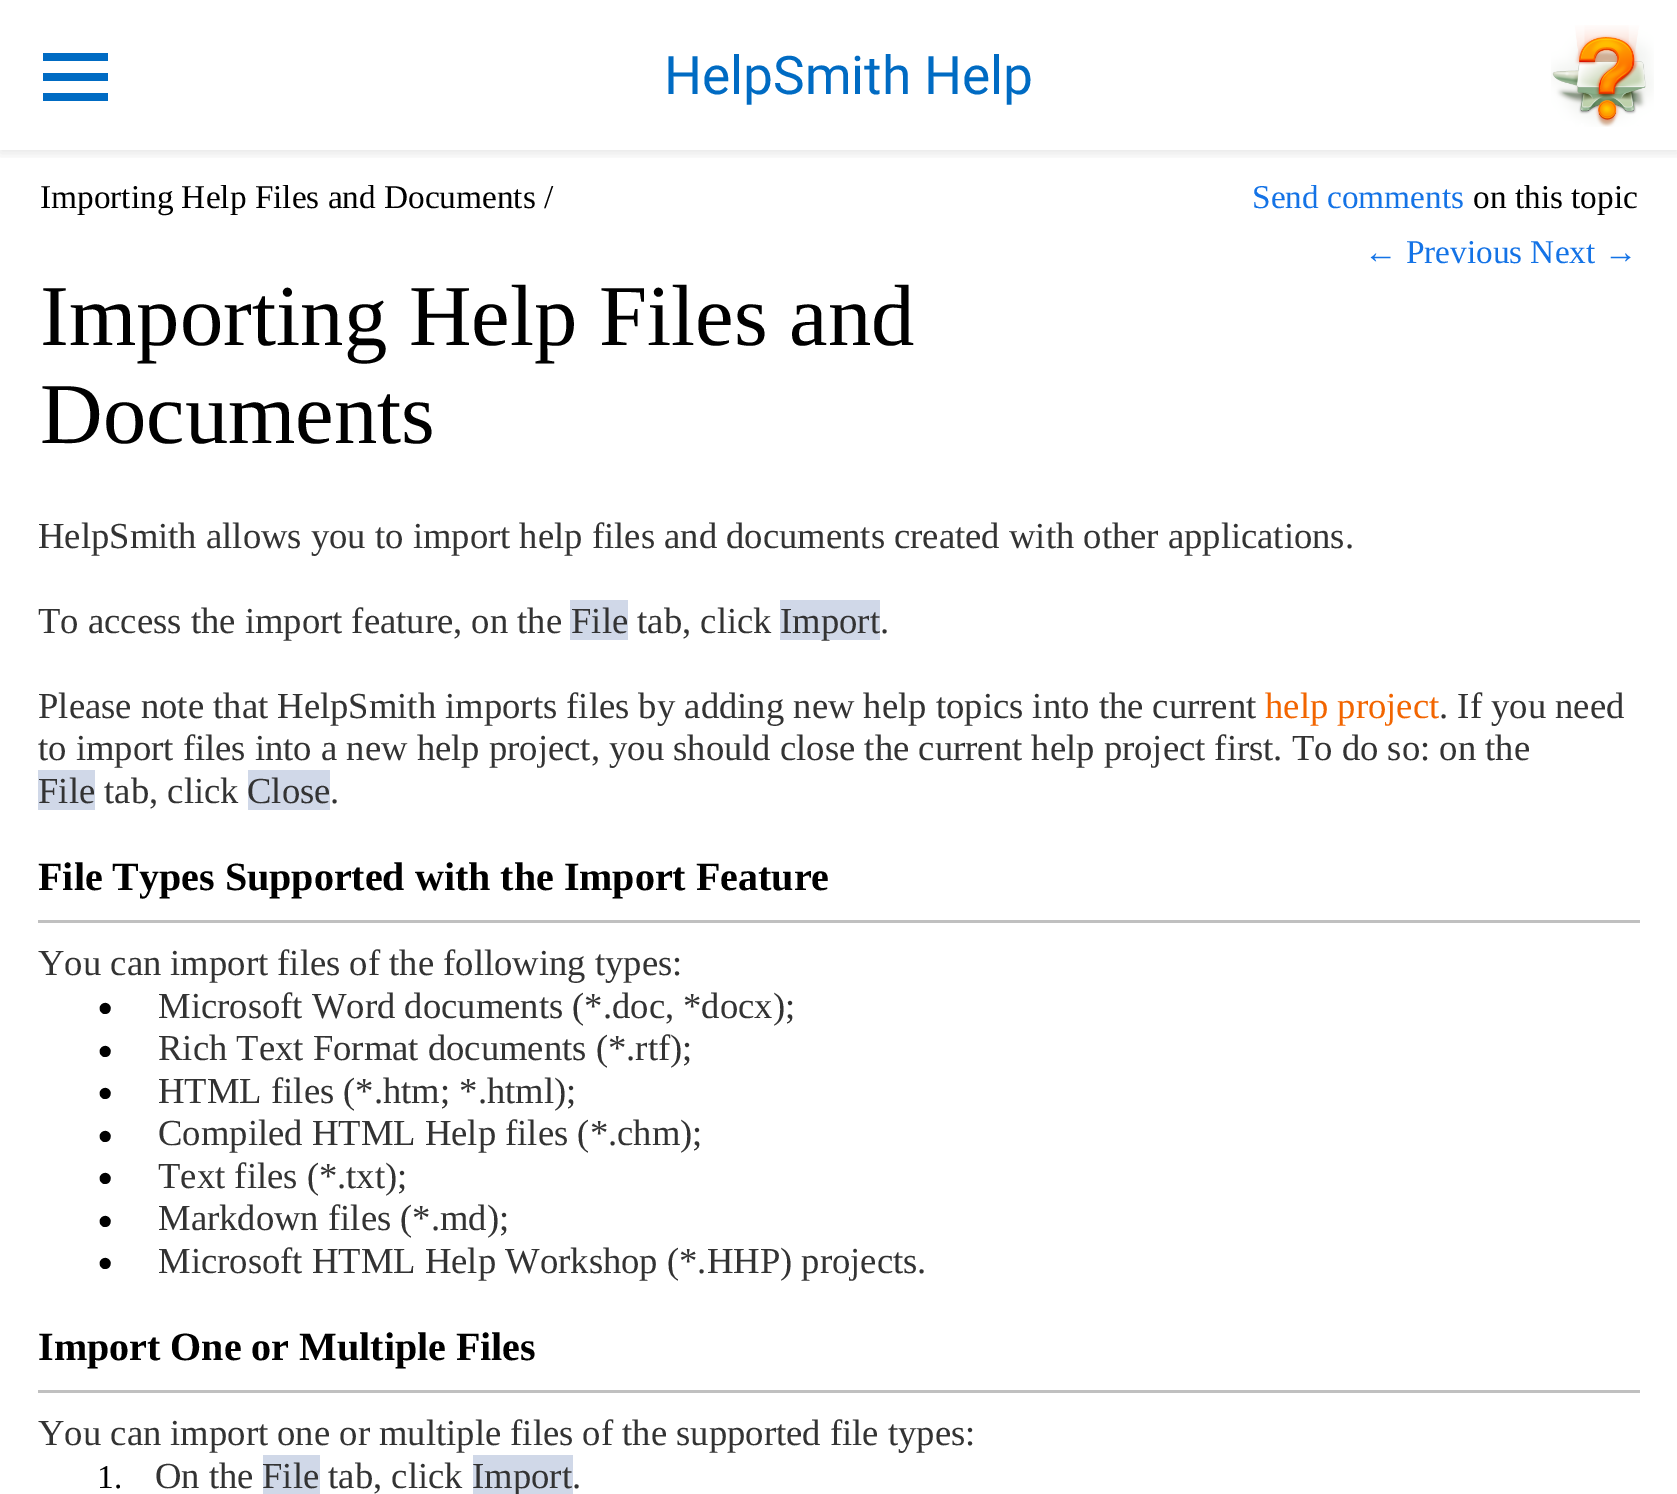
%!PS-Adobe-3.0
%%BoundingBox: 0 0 1677 1494
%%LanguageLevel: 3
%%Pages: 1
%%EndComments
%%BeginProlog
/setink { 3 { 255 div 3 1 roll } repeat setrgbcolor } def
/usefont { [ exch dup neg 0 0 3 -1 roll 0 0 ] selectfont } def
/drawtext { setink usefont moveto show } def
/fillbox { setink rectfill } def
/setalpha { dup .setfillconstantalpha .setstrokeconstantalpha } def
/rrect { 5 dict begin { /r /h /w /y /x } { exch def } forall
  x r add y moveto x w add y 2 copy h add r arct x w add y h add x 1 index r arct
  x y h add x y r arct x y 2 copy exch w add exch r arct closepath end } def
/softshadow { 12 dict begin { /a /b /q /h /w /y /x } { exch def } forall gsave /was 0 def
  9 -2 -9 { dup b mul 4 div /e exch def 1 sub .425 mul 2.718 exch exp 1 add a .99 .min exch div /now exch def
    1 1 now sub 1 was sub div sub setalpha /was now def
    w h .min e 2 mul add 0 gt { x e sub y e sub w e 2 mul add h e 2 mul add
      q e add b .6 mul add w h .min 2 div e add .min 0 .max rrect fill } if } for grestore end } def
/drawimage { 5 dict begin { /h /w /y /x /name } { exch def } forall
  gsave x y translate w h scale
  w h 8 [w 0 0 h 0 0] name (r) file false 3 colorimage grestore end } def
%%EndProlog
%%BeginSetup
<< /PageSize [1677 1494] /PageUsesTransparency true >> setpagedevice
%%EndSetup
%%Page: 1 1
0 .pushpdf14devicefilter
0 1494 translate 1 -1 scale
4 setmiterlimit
0 0 1677 1494 255 255 255 fillbox
gsave
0 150 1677 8 rectclip
0 0 0 setink
0 3 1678 150 0 6 0.1 softshadow
grestore
43 53 65 8 0 107 195 fillbox
43 73 65 8 0 107 195 fillbox
43 93 65 8 0 107 195 fillbox
(HelpSmith Help) 664 94 /Roboto-Regular 53.25 0 107 195 drawtext
(assets/img1.rgb) 1551 25 103 102 drawimage
(Importing Help Files and Documents /) 40 208 /LiberationSerif-Regular 33.3 0 0 0 drawtext
(Importing Help Files and) 40 345 /LiberationSerif-Regular 86.75 0 0 0 drawtext
(Documents) 40 443 /LiberationSerif-Regular 86.75 0 0 0 drawtext
(Send comments) 1252 208 /LiberationSerif-Regular 33.3 20 115 230 drawtext
(on this topic) 1473 208 /LiberationSerif-Regular 33.3 0 0 0 drawtext
(← Previous Next →) 1364 263 /LiberationSerif-Regular 33.3 20 115 230 drawtext
(HelpSmith allows you to import help files and documents created with other applications.) 38 548 /LiberationSerif-Regular 36.65 51 51 51 drawtext
(To access the import feature, on the) 38 633 /LiberationSerif-Regular 36.65 51 51 51 drawtext
570 600 58 40 208 216 232 fillbox
(File tab, click) 571 633 /LiberationSerif-Regular 36.65 51 51 51 drawtext
780 600 100 40 208 216 232 fillbox
(Import.) 780 633 /LiberationSerif-Regular 36.65 51 51 51 drawtext
(Please note that HelpSmith imports files by adding new help topics into the current) 38 718 /LiberationSerif-Regular 36.65 51 51 51 drawtext
(help project) 1265 718 /LiberationSerif-Regular 36.65 242 101 0 drawtext
(. If you need) 1439 718 /LiberationSerif-Regular 36.65 51 51 51 drawtext
(to import files into a new help project, you should close the current help project first. To do so: on the) 38 760 /LiberationSerif-Regular 36.65 51 51 51 drawtext
38 770 57 40 208 216 232 fillbox
(File tab, click) 38 803 /LiberationSerif-Regular 36.65 51 51 51 drawtext
248 770 82 40 208 216 232 fillbox
(Close.) 247 803 /LiberationSerif-Regular 36.65 51 51 51 drawtext
(File Types Supported with the Import Feature) 38 890 /LiberationSerif-Bold 40 0 0 0 drawtext
38 920 1602 3 192 192 192 fillbox
(You can import files of the following types:) 38 975 /LiberationSerif-Regular 36.65 51 51 51 drawtext
(•) 97 1024 /LiberationSerif-Regular 47 0 0 0 drawtext
(Microsoft Word documents \(*.doc, *docx\);) 158 1018 /LiberationSerif-Regular 36.65 51 51 51 drawtext
(•) 97 1067 /LiberationSerif-Regular 47 0 0 0 drawtext
(Rich Text Format documents \(*.rtf\);) 158 1060 /LiberationSerif-Regular 36.65 51 51 51 drawtext
(•) 97 1109 /LiberationSerif-Regular 47 0 0 0 drawtext
(HTML files \(*.htm; *.html\);) 158 1103 /LiberationSerif-Regular 36.65 51 51 51 drawtext
(•) 97 1152 /LiberationSerif-Regular 47 0 0 0 drawtext
(Compiled HTML Help files \(*.chm\);) 158 1145 /LiberationSerif-Regular 36.65 51 51 51 drawtext
(•) 97 1194 /LiberationSerif-Regular 47 0 0 0 drawtext
(Text files \(*.txt\);) 158 1188 /LiberationSerif-Regular 36.65 51 51 51 drawtext
(•) 97 1237 /LiberationSerif-Regular 47 0 0 0 drawtext
(Markdown files \(*.md\);) 158 1230 /LiberationSerif-Regular 36.65 51 51 51 drawtext
(•) 97 1279 /LiberationSerif-Regular 47 0 0 0 drawtext
(Microsoft HTML Help Workshop \(*.HHP\) projects.) 158 1273 /LiberationSerif-Regular 36.65 51 51 51 drawtext
(Import One or Multiple Files) 38 1360 /LiberationSerif-Bold 40 0 0 0 drawtext
38 1390 1602 3 192 192 192 fillbox
(You can import one or multiple files of the supported file types:) 38 1445 /LiberationSerif-Regular 36.65 51 51 51 drawtext
(1.) 97 1488 /LiberationSerif-Regular 33.3 0 0 0 drawtext
(On the) 155 1488 /LiberationSerif-Regular 36.65 51 51 51 drawtext
263 1455 57 39 208 216 232 fillbox
(File tab, click) 262 1488 /LiberationSerif-Regular 36.65 51 51 51 drawtext
473 1455 100 39 208 216 232 fillbox
(Import.) 472 1488 /LiberationSerif-Regular 36.65 51 51 51 drawtext
.poppdf14devicefilter showpage
%%EOF
